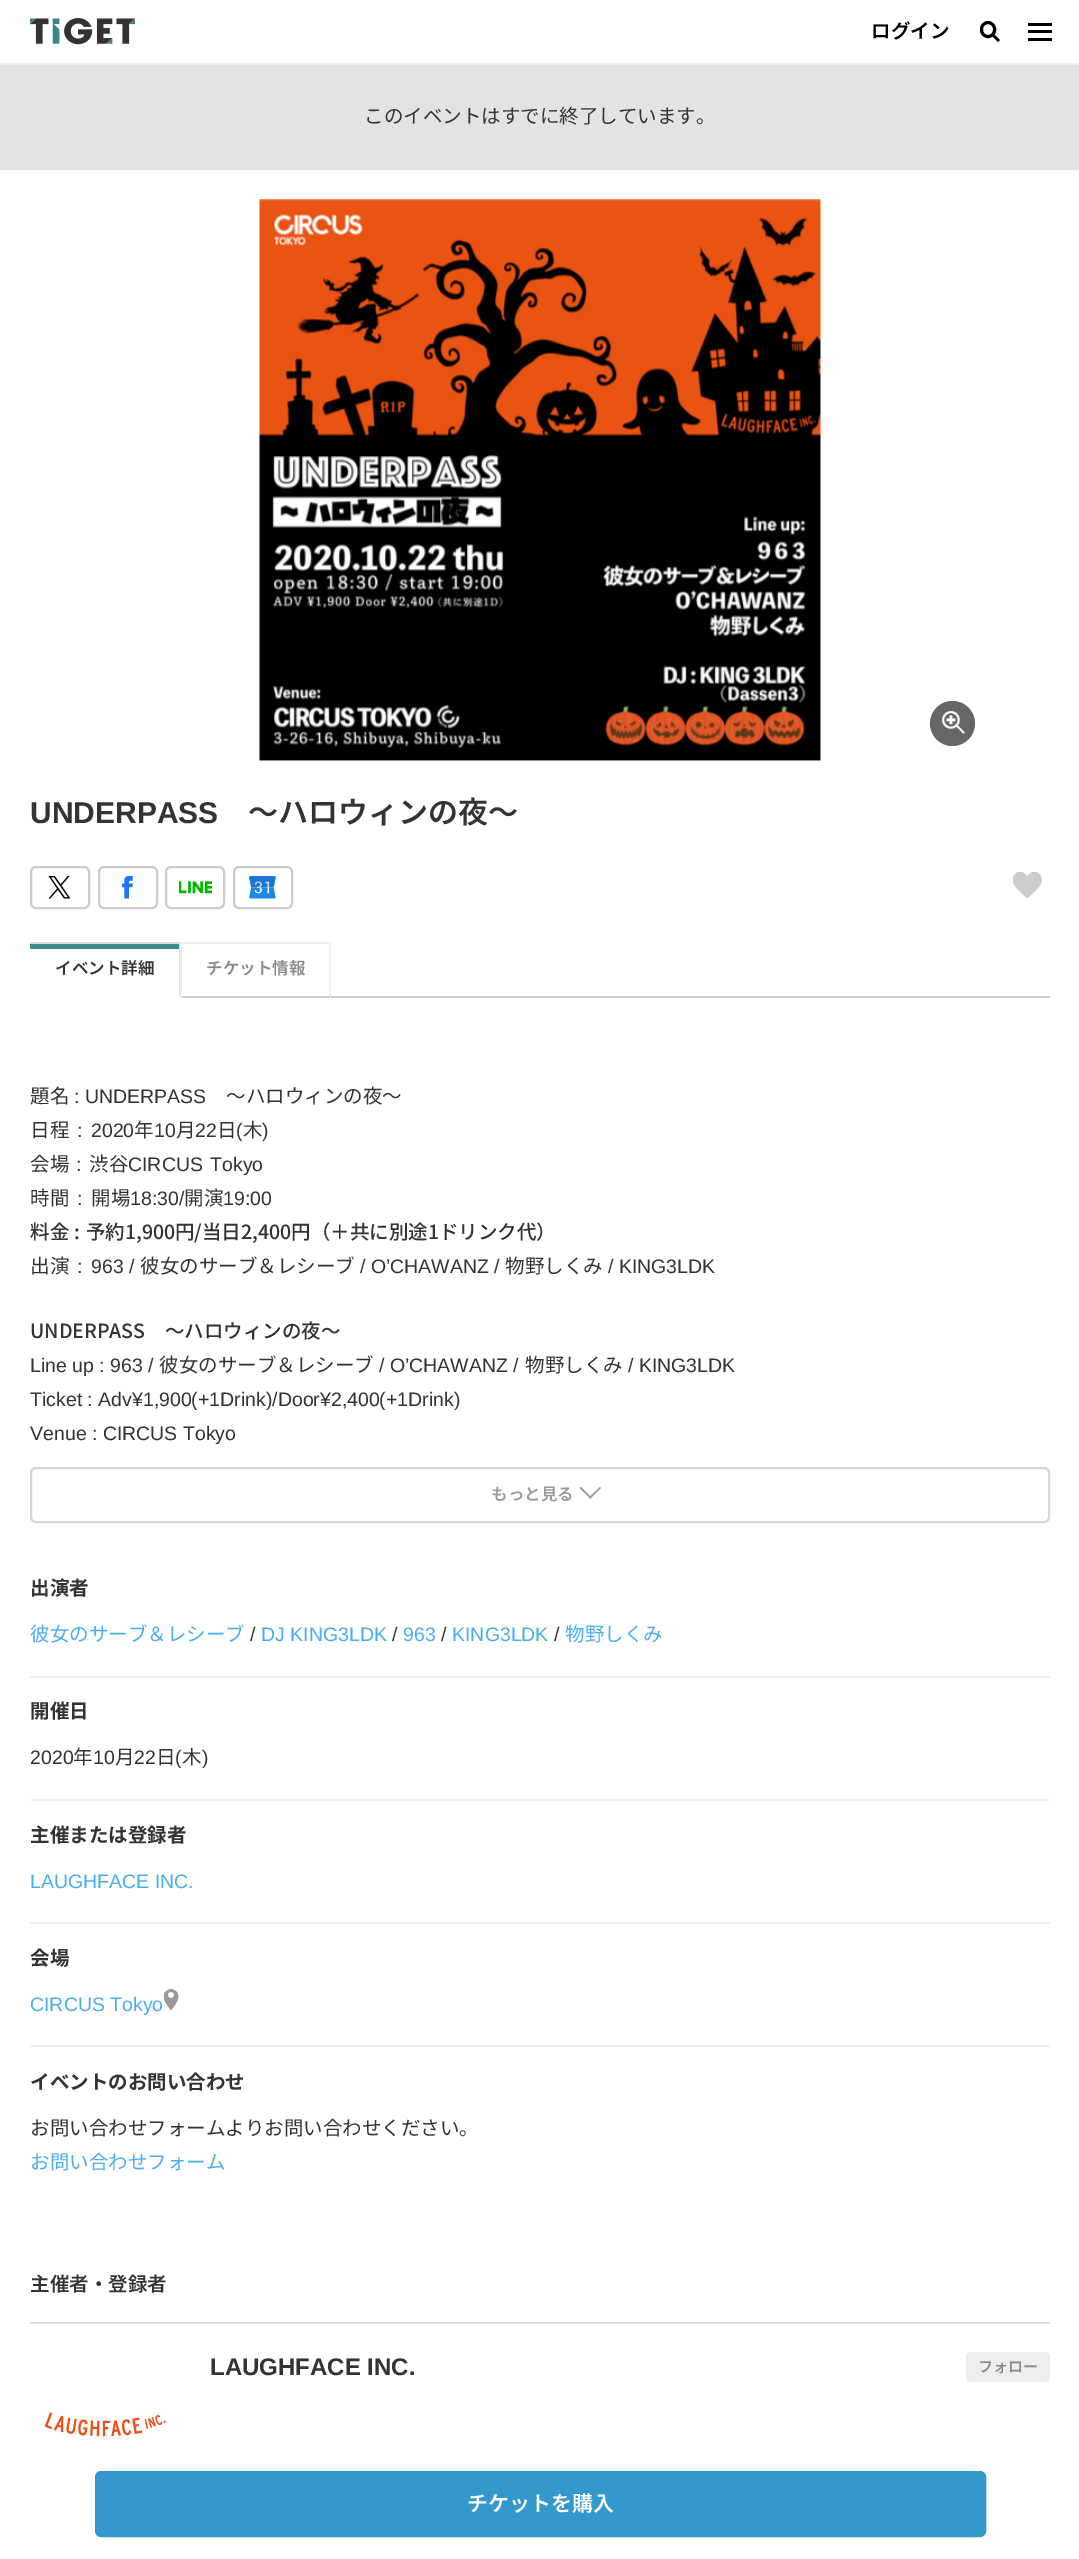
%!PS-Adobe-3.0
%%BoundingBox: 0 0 1079 2559
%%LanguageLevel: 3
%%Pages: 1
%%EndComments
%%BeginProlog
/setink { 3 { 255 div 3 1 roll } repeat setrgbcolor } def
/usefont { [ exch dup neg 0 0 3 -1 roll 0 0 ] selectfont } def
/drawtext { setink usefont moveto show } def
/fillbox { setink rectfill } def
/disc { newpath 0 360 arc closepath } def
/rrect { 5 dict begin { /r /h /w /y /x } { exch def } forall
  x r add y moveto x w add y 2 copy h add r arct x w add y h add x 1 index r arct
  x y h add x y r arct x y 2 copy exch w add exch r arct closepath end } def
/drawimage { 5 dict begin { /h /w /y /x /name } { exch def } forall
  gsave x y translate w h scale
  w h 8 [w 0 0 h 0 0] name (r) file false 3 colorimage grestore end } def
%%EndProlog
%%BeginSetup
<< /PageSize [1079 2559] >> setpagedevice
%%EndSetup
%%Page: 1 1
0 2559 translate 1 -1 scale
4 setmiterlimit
0 0 1079 2559 255 255 255 fillbox
0 63 1079 2 240 240 240 fillbox
(assets/img1.rgb) 30 18 105 27 drawimage
(ログイン) 871 38 /NotoSansJP-SemiBold 19.5 0 0 0 drawtext
3 setlinewidth
981.5 22.5 13 14 6.5 rrect stroke
993.5 33.5 moveto 1000 40 lineto 998 42 lineto 991.5 35.5 lineto closepath fill
1028 23 24 3 0 0 0 fillbox
1028 30 24 3 0 0 0 fillbox
1028 38 24 3 0 0 0 fillbox
0 65 1079 105 226 227 229 fillbox
(このイベントはすでに終了しています。) 364 123 /NotoSansJP-Regular 19.5 51 51 51 drawtext
(assets/img2.rgb) 259 199 563 562 drawimage
102 102 102 setink
952.5 723.5 22.5 disc fill
(assets/img3.rgb) 942 711 23 23 drawimage
(UNDERPASS) 30 823 /LiberationSans-Bold 30 51 51 51 drawtext
(〜ハロウィンの夜〜) 248 823 /NotoSansJP-SemiBold 30 51 51 51 drawtext
204 204 204 setink
2 setlinewidth
31 867 58 41 5 rrect stroke
(assets/img4.rgb) 48 876 23 23 drawimage
99 867 58 41 5 rrect stroke
(assets/img5.rgb) 122 876 11 23 drawimage
166 867 58 41 5 rrect stroke
(assets/img6.rgb) 179 881 33 13 drawimage
234 867 58 41 5 rrect stroke
(assets/img7.rgb) 249 876 27 23 drawimage
(assets/img8.rgb) 1013 872 29 27 drawimage
331 996 719 2 204 204 204 fillbox
30 942 150 2 220 220 220 fillbox
179 942 1 56 220 220 220 fillbox
179 996 1 2 255 255 255 fillbox
30 944 149 5 60 140 140 fillbox
(イベント詳細) 55 974 /NotoSansJP-SemiBold 16.5 51 51 51 drawtext
180 942 150 2 240 240 240 fillbox
329 942 2 56 240 240 240 fillbox
180 996 150 2 204 204 204 fillbox
180 942 2 56 240 240 240 fillbox
(チケット情報) 206 974 /NotoSansJP-SemiBold 16.5 136 136 136 drawtext
(題名) 30 1103 /NotoSansJP-Regular 19.5 51 51 51 drawtext
(: UNDERPASS) 74 1103 /LiberationSans-Regular 19.5 51 51 51 drawtext
(〜ハロウィンの夜〜) 226 1103 /NotoSansJP-Regular 19.5 51 51 51 drawtext
(日程) 30 1137 /NotoSansJP-Regular 19.5 51 51 51 drawtext
/LiberationSans-Regular 19.5 usefont
77 1137 moveto 3 0 32 (: 2020) widthshow
(年) 134 1137 /NotoSansJP-Regular 19.5 51 51 51 drawtext
(10) 154 1137 /LiberationSans-Regular 19.5 51 51 51 drawtext
(月) 176 1137 /NotoSansJP-Regular 19.5 51 51 51 drawtext
(22) 195 1137 /LiberationSans-Regular 19.5 51 51 51 drawtext
(日) 217 1137 /NotoSansJP-Regular 19.5 51 51 51 drawtext
(\() 236 1137 /LiberationSans-Regular 19.5 51 51 51 drawtext
(木) 243 1137 /NotoSansJP-Regular 19.5 51 51 51 drawtext
(\)) 262 1137 /LiberationSans-Regular 19.5 51 51 51 drawtext
(会場) 30 1171 /NotoSansJP-Regular 19.5 51 51 51 drawtext
(:) 76 1171 /LiberationSans-Regular 19.5 51 51 51 drawtext
(渋谷) 89 1171 /NotoSansJP-Regular 19.5 51 51 51 drawtext
/LiberationSans-Regular 19.5 usefont
128 1171 moveto 2 0 32 (CIRCUS Tokyo) widthshow
(時間) 30 1205 /NotoSansJP-Regular 19.5 51 51 51 drawtext
(:) 77 1205 /LiberationSans-Regular 19.5 51 51 51 drawtext
(開場) 91 1205 /NotoSansJP-Regular 19.5 51 51 51 drawtext
(18:30/) 130 1205 /LiberationSans-Regular 19.5 51 51 51 drawtext
(開演) 184 1205 /NotoSansJP-Regular 19.5 51 51 51 drawtext
(19:00) 223 1205 /LiberationSans-Regular 19.5 51 51 51 drawtext
/NotoSansJP-Medium 19.5 usefont
30 1239 moveto 1 0 32 (料金 : 予約1,900円/当日2,400円（＋共に別途1ドリンク代）) widthshow
(出演) 30 1273 /NotoSansJP-Regular 19.5 51 51 51 drawtext
(:) 77 1273 /LiberationSans-Regular 19.5 51 51 51 drawtext
(963 /) 91 1273 /LiberationSans-Regular 19.5 51 51 51 drawtext
(彼女のサーブ＆レシーブ) 140 1273 /NotoSansJP-Regular 19.5 51 51 51 drawtext
(/ O’CHAWANZ /) 360 1273 /LiberationSans-Regular 19.5 51 51 51 drawtext
(物野しくみ) 505 1273 /NotoSansJP-Regular 19.5 51 51 51 drawtext
(/ KING3LDK) 608 1273 /LiberationSans-Regular 19.5 51 51 51 drawtext
(UNDERPASS　〜ハロウィンの夜〜) 30 1338 /NotoSansJP-Medium 19.5 51 51 51 drawtext
(Line up : 963 /) 30 1372 /LiberationSans-Regular 19.5 51 51 51 drawtext
(彼女のサーブ＆レシーブ) 159 1372 /NotoSansJP-Regular 19.5 51 51 51 drawtext
(/ O’CHAWANZ /) 379 1372 /LiberationSans-Regular 19.5 51 51 51 drawtext
(物野しくみ) 525 1372 /NotoSansJP-Regular 19.5 51 51 51 drawtext
(/ KING3LDK) 628 1372 /LiberationSans-Regular 19.5 51 51 51 drawtext
(Ticket : Adv¥1,900\(+1Drink\)/Door¥2,400\(+1Drink\)) 30 1406 /LiberationSans-Regular 19.5 51 51 51 drawtext
(Venue : CIRCUS Tokyo) 30 1440 /LiberationSans-Regular 19.5 51 51 51 drawtext
215 215 215 setink
31 1468 1018 54 5 rrect stroke
(もっと見る) 491 1500 /NotoSansJP-SemiBold 16.5 153 153 153 drawtext
600 1487 moveto 601 1488 lineto 590.5 1498.5 lineto 589 1497.5 lineto closepath fill
581 1487 moveto 591.5 1497.5 lineto 590.5 1498.5 lineto 579.5 1488 lineto closepath fill
30 1676 1020 2 240 240 240 fillbox
(出演者) 30 1595 /NotoSansJP-Bold 19.5 51 51 51 drawtext
(彼女のサーブ＆レシーブ) 30 1641 /NotoSansJP-Regular 19.5 74 175 234 drawtext
(/) 250 1641 /LiberationSans-Regular 19.5 51 51 51 drawtext
(DJ KING3LDK) 261 1641 /LiberationSans-Regular 19.5 74 175 234 drawtext
(/) 392 1641 /LiberationSans-Regular 19.5 51 51 51 drawtext
(963) 403 1641 /LiberationSans-Regular 19.5 74 175 234 drawtext
(/) 441 1641 /LiberationSans-Regular 19.5 51 51 51 drawtext
(KING3LDK) 452 1641 /LiberationSans-Regular 19.5 74 175 234 drawtext
(/) 554 1641 /LiberationSans-Regular 19.5 51 51 51 drawtext
(物野しくみ) 565 1641 /NotoSansJP-Regular 19.5 74 175 234 drawtext
30 1799 1020 2 240 240 240 fillbox
(開催日) 30 1718 /NotoSansJP-Bold 19.5 51 51 51 drawtext
(2020) 30 1764 /LiberationSans-Regular 19.5 51 51 51 drawtext
(年) 73 1764 /NotoSansJP-Regular 19.5 51 51 51 drawtext
(10) 93 1764 /LiberationSans-Regular 19.5 51 51 51 drawtext
(月) 115 1764 /NotoSansJP-Regular 19.5 51 51 51 drawtext
(22) 134 1764 /LiberationSans-Regular 19.5 51 51 51 drawtext
(日) 156 1764 /NotoSansJP-Regular 19.5 51 51 51 drawtext
(\() 175 1764 /LiberationSans-Regular 19.5 51 51 51 drawtext
(木) 182 1764 /NotoSansJP-Regular 19.5 51 51 51 drawtext
(\)) 202 1764 /LiberationSans-Regular 19.5 51 51 51 drawtext
30 1922 1020 2 240 240 240 fillbox
(主催または登録者) 30 1842 /NotoSansJP-Bold 19.5 51 51 51 drawtext
(LAUGHFACE INC.) 30 1888 /LiberationSans-Regular 19.5 74 175 234 drawtext
30 2045 1020 2 240 240 240 fillbox
(会場) 30 1965 /NotoSansJP-Bold 19.5 51 51 51 drawtext
(CIRCUS Tokyo) 30 2011 /LiberationSans-Regular 19.5 74 175 234 drawtext
(assets/img9.rgb) 164 1989 15 22 drawimage
(イベントのお問い合わせ) 30 2089 /NotoSansJP-Bold 19.5 51 51 51 drawtext
(お問い合わせフォームよりお問い合わせください。) 30 2135 /NotoSansJP-Regular 19.5 51 51 51 drawtext
(お問い合わせフォーム) 30 2169 /NotoSansJP-Regular 19.5 74 175 234 drawtext
30 2322 1020 2 220 220 220 fillbox
(主催者・登録者) 30 2291 /NotoSansJP-SemiBold 19.5 51 51 51 drawtext
(LAUGHFACE INC.) 210 2375 /LiberationSans-Bold 24 51 51 51 drawtext
(assets/img10.rgb) 44 2410 124 28 drawimage
238 238 238 setink
966 2352 84 30 6 rrect fill
(フォロー) 978 2372 /NotoSansJP-SemiBold 15 136 136 136 drawtext
51 153 204 setink
96 2472 889 64 5 rrect gsave fill grestore
stroke
(チケットを購入) 467 2511 /NotoSansJP-SemiBold 21 255 255 255 drawtext
showpage
%%EOF
